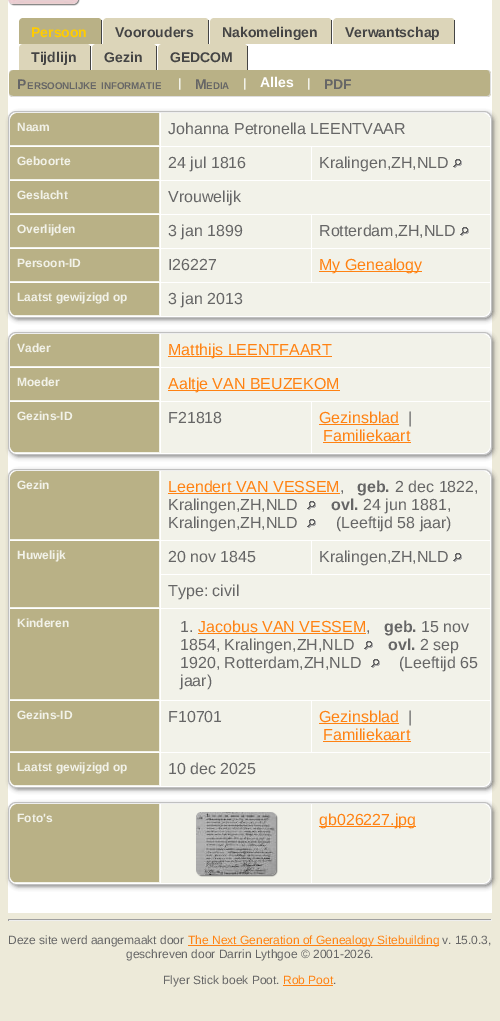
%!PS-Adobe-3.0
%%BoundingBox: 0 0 500 1021
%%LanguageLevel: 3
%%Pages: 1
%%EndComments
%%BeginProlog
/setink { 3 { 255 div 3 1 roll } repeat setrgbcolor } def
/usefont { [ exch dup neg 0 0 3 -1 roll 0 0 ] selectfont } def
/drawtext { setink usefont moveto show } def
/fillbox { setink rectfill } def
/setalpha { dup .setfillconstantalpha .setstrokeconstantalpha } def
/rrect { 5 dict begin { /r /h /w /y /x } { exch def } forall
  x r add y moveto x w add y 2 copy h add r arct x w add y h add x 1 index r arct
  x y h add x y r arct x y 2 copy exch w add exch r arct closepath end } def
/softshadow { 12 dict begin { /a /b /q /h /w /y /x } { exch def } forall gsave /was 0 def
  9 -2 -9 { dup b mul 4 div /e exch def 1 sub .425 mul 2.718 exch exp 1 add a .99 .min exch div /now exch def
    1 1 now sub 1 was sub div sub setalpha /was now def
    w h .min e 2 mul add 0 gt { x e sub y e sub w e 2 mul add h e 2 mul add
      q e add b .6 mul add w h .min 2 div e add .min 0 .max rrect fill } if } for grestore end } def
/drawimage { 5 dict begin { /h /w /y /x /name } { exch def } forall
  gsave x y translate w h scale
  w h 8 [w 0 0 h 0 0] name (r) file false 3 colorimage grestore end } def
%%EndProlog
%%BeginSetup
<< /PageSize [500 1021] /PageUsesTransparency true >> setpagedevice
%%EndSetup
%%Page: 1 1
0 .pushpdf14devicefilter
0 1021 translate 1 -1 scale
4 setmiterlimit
0 0 500 1021 237 234 217 fillbox
8 0 484 913 255 255 255 fillbox
119 119 119 setink
9 -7 70 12 5 0.5 1 softshadow
(assets/img1.rgb) 8 0 70 4 drawimage
185 177 134 setink
23 18 moveto 98 18 lineto 100 18 102 20 102 22 curveto 102 44 lineto 19 44 lineto 19 22 lineto 19 20 21 18 23 18 curveto closepath fill
101 20 1 24 68 68 68 fillbox
(Persoon) 31 37 /LiberationSans-Bold 14 255 204 0 drawtext
220 213 185 setink
107 18 moveto 205 18 lineto 207 18 209 20 209 22 curveto 209 44 lineto 103 44 lineto 103 22 lineto 103 20 105 18 107 18 curveto closepath fill
208 20 1 24 68 68 68 fillbox
(Voorouders) 115 37 /LiberationSans-Bold 14 68 68 68 drawtext
220 213 185 setink
214 18 moveto 328 18 lineto 330 18 332 20 332 22 curveto 332 44 lineto 210 44 lineto 210 22 lineto 210 20 212 18 214 18 curveto closepath fill
331 20 1 24 68 68 68 fillbox
(Nakomelingen) 222 37 /LiberationSans-Bold 14 68 68 68 drawtext
220 213 185 setink
337 18 moveto 451 18 lineto 453 18 455 20 455 22 curveto 455 44 lineto 333 44 lineto 333 22 lineto 333 20 335 18 337 18 curveto closepath fill
454 20 1 24 68 68 68 fillbox
(Verwantschap) 345 37 /LiberationSans-Bold 14 68 68 68 drawtext
220 213 185 setink
23 44 moveto 87 44 lineto 89 44 91 46 91 48 curveto 91 70 lineto 19 70 lineto 19 48 lineto 19 46 21 44 23 44 curveto closepath fill
90 46 1 24 68 68 68 fillbox
(Tijdlijn) 31 62 /LiberationSans-Bold 14 68 68 68 drawtext
220 213 185 setink
96 44 moveto 153 44 lineto 155 44 157 46 157 48 curveto 157 70 lineto 92 70 lineto 92 48 lineto 92 46 94 44 96 44 curveto closepath fill
156 46 1 24 68 68 68 fillbox
(Gezin) 104 62 /LiberationSans-Bold 14 68 68 68 drawtext
220 213 185 setink
162 44 moveto 244 44 lineto 246 44 248 46 248 48 curveto 248 70 lineto 158 70 lineto 158 48 lineto 158 46 160 44 162 44 curveto closepath fill
247 46 1 24 68 68 68 fillbox
(GEDCOM) 170 62 /LiberationSans-Bold 14 68 68 68 drawtext
185 177 134 setink
9 70 482 27 4 rrect fill
221 221 221 setink
13 70 moveto 487 70 lineto 489 70 491 72 491 74 curveto 491 93 lineto 491 95 489 97 487 97 curveto 13 97 lineto 11 97 9 95 9 93 curveto 9 74 lineto 9 72 11 70 13 70 curveto closepath 13 70 moveto 487 70 lineto 489 70 490 72 490 74 curveto 490 93 lineto 490 95 489 96 487 96 curveto 13 96 lineto 11 96 9 95 9 93 curveto 9 74 lineto 9 72 11 70 13 70 curveto closepath eofill
(P) 17 89 /LiberationSans-Bold 14 102 102 102 drawtext
(ERSOONLIJKE) 27 89 /LiberationSans-Bold 9.75 102 102 102 drawtext
(INFORMATIE) 101 89 /LiberationSans-Bold 9.75 102 102 102 drawtext
(|) 178 87 /LiberationSans-Bold 12 242 242 233 drawtext
(M) 195 89 /LiberationSans-Bold 14 102 102 102 drawtext
(EDIA) 206 89 /LiberationSans-Bold 9.75 102 102 102 drawtext
(|) 243 87 /LiberationSans-Bold 12 242 242 233 drawtext
(Alles) 260 87 /LiberationSans-Bold 14 255 255 255 drawtext
(|) 307 87 /LiberationSans-Bold 12 242 242 233 drawtext
(PDF) 324 89 /LiberationSans-Bold 14 102 102 102 drawtext
11 114 482 205 7 2.5 1 softshadow
255 255 255 setink
8.5 111.5 483 206 7.5 rrect gsave fill grestore
192 192 192 setink
stroke
185 177 134 setink
18 113 moveto 160 113 lineto 160 146 lineto 10 146 lineto 10 121 lineto 10 116.5 13.5 113 18 113 curveto closepath fill
159 113 1 33 242 242 233 fillbox
10 145 150 1 242 242 233 fillbox
(Naam) 17 131 /LiberationSans-Bold 12 242 242 233 drawtext
161 113 moveto 482 113 lineto 486.5 113 490 116.5 490 121 curveto 490 146 lineto 161 146 lineto closepath fill
489 117 1 3 242 242 233 fillbox
(Johanna Petronella LEENTVAAR) 168 134 /LiberationSans-Regular 16 102 102 102 drawtext
10 147 149 32 185 177 134 fillbox
159 147 1 33 242 242 233 fillbox
10 179 150 1 242 242 233 fillbox
(Geboorte) 17 165 /LiberationSans-Bold 12 242 242 233 drawtext
161 147 150 33 242 242 233 fillbox
(24 jul 1816) 168 168 /LiberationSans-Regular 16 102 102 102 drawtext
312 147 178 33 242 242 233 fillbox
(Kralingen,ZH,NLD) 319 168 /LiberationSans-Regular 16 102 102 102 drawtext
(assets/img2.rgb) 453 159 9 9 drawimage
10 181 149 32 185 177 134 fillbox
159 181 1 33 242 242 233 fillbox
10 213 150 1 242 242 233 fillbox
(Geslacht) 17 199 /LiberationSans-Bold 12 242 242 233 drawtext
161 181 329 33 242 242 233 fillbox
(Vrouwelijk) 168 202 /LiberationSans-Regular 16 102 102 102 drawtext
10 215 149 32 185 177 134 fillbox
159 215 1 33 242 242 233 fillbox
10 247 150 1 242 242 233 fillbox
(Overlijden) 17 233 /LiberationSans-Bold 12 242 242 233 drawtext
161 215 150 33 242 242 233 fillbox
(3 jan 1899) 168 236 /LiberationSans-Regular 16 102 102 102 drawtext
312 215 178 33 242 242 233 fillbox
(Rotterdam,ZH,NLD) 319 236 /LiberationSans-Regular 16 102 102 102 drawtext
(assets/img2.rgb) 460 227 9 9 drawimage
10 249 149 32 185 177 134 fillbox
159 249 1 33 242 242 233 fillbox
10 281 150 1 242 242 233 fillbox
(Persoon-ID) 17 267 /LiberationSans-Bold 12 242 242 233 drawtext
161 249 150 33 242 242 233 fillbox
(I26227) 168 270 /LiberationSans-Regular 16 102 102 102 drawtext
312 249 178 33 242 242 233 fillbox
319 271 103 1 255 130 18 fillbox
(My Genealogy) 319 270 /LiberationSans-Regular 16 255 130 18 drawtext
185 177 134 setink
10 283 moveto 160 283 lineto 160 316 lineto 18 316 lineto 13.5 316 10 312.5 10 308 curveto closepath fill
159 283 1 33 242 242 233 fillbox
14 315 146 1 242 242 233 fillbox
(Laatst gewijzigd op) 17 301 /LiberationSans-Bold 12 242 242 233 drawtext
161 283 moveto 490 283 lineto 490 308 lineto 490 312.5 486.5 316 482 316 curveto 161 316 lineto closepath fill
161 283 moveto 490 283 lineto 490 308 lineto 490 312 486 316 482 316 curveto 161 316 lineto closepath 161 283 moveto 489 283 lineto 489 308 lineto 489 312 486 315 482 315 curveto 161 315 lineto closepath eofill
(3 jan 2013) 168 304 /LiberationSans-Regular 16 102 102 102 drawtext
11 335 482 121 7 2.5 1 softshadow
255 255 255 setink
8.5 332.5 483 122 7.5 rrect gsave fill grestore
192 192 192 setink
stroke
185 177 134 setink
18 334 moveto 160 334 lineto 160 367 lineto 10 367 lineto 10 342 lineto 10 337.5 13.5 334 18 334 curveto closepath fill
159 334 1 33 242 242 233 fillbox
10 366 150 1 242 242 233 fillbox
(Vader) 17 352 /LiberationSans-Bold 12 242 242 233 drawtext
161 334 moveto 482 334 lineto 486.5 334 490 337.5 490 342 curveto 490 367 lineto 161 367 lineto closepath fill
489 338 1 3 242 242 233 fillbox
168 356 164 1 255 130 18 fillbox
(Matthijs LEENTFAART) 168 355 /LiberationSans-Regular 16 255 130 18 drawtext
10 368 149 32 185 177 134 fillbox
159 368 1 33 242 242 233 fillbox
10 400 150 1 242 242 233 fillbox
(Moeder) 17 386 /LiberationSans-Bold 12 242 242 233 drawtext
161 368 329 33 242 242 233 fillbox
168 390 172 1 255 130 18 fillbox
(Aaltje VAN BEUZEKOM) 168 389 /LiberationSans-Regular 16 255 130 18 drawtext
185 177 134 setink
10 402 moveto 160 402 lineto 160 453 lineto 18 453 lineto 13.5 453 10 449.5 10 445 curveto closepath fill
159 402 1 51 242 242 233 fillbox
14 452 146 1 242 242 233 fillbox
(Gezins-ID) 17 420 /LiberationSans-Bold 12 242 242 233 drawtext
161 402 150 51 242 242 233 fillbox
(F21818) 168 423 /LiberationSans-Regular 16 102 102 102 drawtext
242 242 233 setink
312 402 moveto 490 402 lineto 490 445 lineto 490 449.5 486.5 453 482 453 curveto 312 453 lineto closepath fill
312 402 moveto 490 402 lineto 490 445 lineto 490 449 486 453 482 453 curveto 312 453 lineto closepath 312 402 moveto 489 402 lineto 489 445 lineto 489 449 486 452 482 452 curveto 312 452 lineto closepath eofill
(Gezinsblad) 319 423 /LiberationSans-Regular 16 255 130 18 drawtext
319 424 80 1 255 130 18 fillbox
(|) 408 423 /LiberationSans-Regular 16 102 102 102 drawtext
(Familiekaart) 323 441 /LiberationSans-Regular 16 255 130 18 drawtext
323 442 88 1 255 130 18 fillbox
102 102 102 setink
11 472 482 317 7 2.5 1 softshadow
255 255 255 setink
8.5 469.5 483 318 7.5 rrect gsave fill grestore
192 192 192 setink
stroke
185 177 134 setink
18 471 moveto 160 471 lineto 160 540 lineto 10 540 lineto 10 479 lineto 10 474.5 13.5 471 18 471 curveto closepath fill
159 471 1 69 242 242 233 fillbox
10 539 150 1 242 242 233 fillbox
(Gezin) 17 489 /LiberationSans-Bold 12 242 242 233 drawtext
161 471 moveto 482 471 lineto 486.5 471 490 474.5 490 479 curveto 490 540 lineto 161 540 lineto closepath fill
489 475 1 3 242 242 233 fillbox
(Leendert VAN VESSEM) 168 492 /LiberationSans-Regular 16 255 130 18 drawtext
168 493 172 1 255 130 18 fillbox
(,) 340 492 /LiberationSans-Regular 16 102 102 102 drawtext
(geb.) 357 492 /LiberationSans-Bold 16 102 102 102 drawtext
(2 dec 1822,) 395 492 /LiberationSans-Regular 16 102 102 102 drawtext
(Kralingen,ZH,NLD) 168 510 /LiberationSans-Regular 16 102 102 102 drawtext
(assets/img2.rgb) 307 501 9 9 drawimage
(ovl.) 331 510 /LiberationSans-Bold 16 102 102 102 drawtext
(24 jun 1881,) 363 510 /LiberationSans-Regular 16 102 102 102 drawtext
(Kralingen,ZH,NLD) 168 528 /LiberationSans-Regular 16 102 102 102 drawtext
(assets/img2.rgb) 307 519 9 9 drawimage
(\(Leeftijd 58 jaar\)) 336 528 /LiberationSans-Regular 16 102 102 102 drawtext
10 541 149 66 185 177 134 fillbox
159 541 1 67 242 242 233 fillbox
10 607 150 1 242 242 233 fillbox
(Huwelijk) 17 559 /LiberationSans-Bold 12 242 242 233 drawtext
161 541 150 33 242 242 233 fillbox
(20 nov 1845) 168 562 /LiberationSans-Regular 16 102 102 102 drawtext
312 541 178 33 242 242 233 fillbox
(Kralingen,ZH,NLD) 319 562 /LiberationSans-Regular 16 102 102 102 drawtext
(assets/img2.rgb) 453 553 9 9 drawimage
161 575 329 33 242 242 233 fillbox
(Type: civil) 168 596 /LiberationSans-Regular 16 102 102 102 drawtext
10 609 149 90 185 177 134 fillbox
159 609 1 91 242 242 233 fillbox
10 699 150 1 242 242 233 fillbox
(Kinderen) 17 627 /LiberationSans-Bold 12 242 242 233 drawtext
161 609 329 91 242 242 233 fillbox
(1.) 180 632 /LiberationSans-Regular 16 102 102 102 drawtext
(Jacobus VAN VESSEM) 198 632 /LiberationSans-Regular 16 255 130 18 drawtext
198 633 168 1 255 130 18 fillbox
(,) 366 632 /LiberationSans-Regular 16 102 102 102 drawtext
(geb.) 384 632 /LiberationSans-Bold 16 102 102 102 drawtext
(15 nov) 421 632 /LiberationSans-Regular 16 102 102 102 drawtext
(1854, Kralingen,ZH,NLD) 180 650 /LiberationSans-Regular 16 102 102 102 drawtext
(assets/img2.rgb) 364 641 9 9 drawimage
(ovl.) 388 650 /LiberationSans-Bold 16 102 102 102 drawtext
(2 sep) 420 650 /LiberationSans-Regular 16 102 102 102 drawtext
(1920, Rotterdam,ZH,NLD) 180 668 /LiberationSans-Regular 16 102 102 102 drawtext
(assets/img2.rgb) 371 659 9 9 drawimage
(\(Leeftijd 65) 399 668 /LiberationSans-Regular 16 102 102 102 drawtext
(jaar\)) 180 686 /LiberationSans-Regular 16 102 102 102 drawtext
10 701 149 50 185 177 134 fillbox
159 701 1 51 242 242 233 fillbox
10 751 150 1 242 242 233 fillbox
(Gezins-ID) 17 719 /LiberationSans-Bold 12 242 242 233 drawtext
161 701 150 51 242 242 233 fillbox
(F10701) 168 722 /LiberationSans-Regular 16 102 102 102 drawtext
312 701 178 51 242 242 233 fillbox
(Gezinsblad) 319 722 /LiberationSans-Regular 16 255 130 18 drawtext
319 723 80 1 255 130 18 fillbox
(|) 408 722 /LiberationSans-Regular 16 102 102 102 drawtext
(Familiekaart) 323 740 /LiberationSans-Regular 16 255 130 18 drawtext
323 741 88 1 255 130 18 fillbox
185 177 134 setink
10 753 moveto 160 753 lineto 160 786 lineto 18 786 lineto 13.5 786 10 782.5 10 778 curveto closepath fill
159 753 1 33 242 242 233 fillbox
14 785 146 1 242 242 233 fillbox
(Laatst gewijzigd op) 17 771 /LiberationSans-Bold 12 242 242 233 drawtext
161 753 moveto 490 753 lineto 490 778 lineto 490 782.5 486.5 786 482 786 curveto 161 786 lineto closepath fill
161 753 moveto 490 753 lineto 490 778 lineto 490 782 486 786 482 786 curveto 161 786 lineto closepath 161 753 moveto 489 753 lineto 489 778 lineto 489 782 486 785 482 785 curveto 161 785 lineto closepath eofill
(10 dec 2025) 168 774 /LiberationSans-Regular 16 102 102 102 drawtext
11 805 482 81 7 2.5 1 softshadow
255 255 255 setink
8.5 802.5 483 82 7.5 rrect gsave fill grestore
192 192 192 setink
stroke
185 177 134 setink
18 804 moveto 160 804 lineto 160 883 lineto 18 883 lineto 13.5 883 10 879.5 10 875 curveto 10 812 lineto 10 807.5 13.5 804 18 804 curveto closepath fill
159 804 1 79 242 242 233 fillbox
14 882 146 1 242 242 233 fillbox
(Foto's) 17 822 /LiberationSans-Bold 12 242 242 233 drawtext
161 804 150 79 242 242 233 fillbox
119 119 119 setink
197 813 80 63 5 0.5 1 softshadow
(assets/img3.rgb) 196 812 80 63 drawimage
242 242 233 setink
312 804 moveto 482 804 lineto 486.5 804 490 807.5 490 812 curveto 490 875 lineto 490 879.5 486.5 883 482 883 curveto 312 883 lineto closepath fill
312 804 moveto 482 804 lineto 486 804 490 808 490 812 curveto 490 875 lineto 490 879 486 883 482 883 curveto 312 883 lineto closepath 312 804 moveto 482 804 lineto 486 804 489 808 489 812 curveto 489 875 lineto 489 879 486 882 482 882 curveto 312 882 lineto closepath eofill
319 826 97 1 255 130 18 fillbox
(gb026227.jpg) 319 825 /LiberationSans-Regular 16 255 130 18 drawtext
8 919 484 1 159 159 159 fillbox
491 919 1 2 238 238 238 fillbox
8 920 484 1 238 238 238 fillbox
8 919 1 2 159 159 159 fillbox
(Deze site werd aangemaakt door) 8 944 /LiberationSans-Regular 12 102 102 102 drawtext
188 945 251 1 255 130 18 fillbox
(The Next Generation of Genealogy Sitebuilding) 188 944 /LiberationSans-Regular 12 255 130 18 drawtext
(v. 15.0.3,) 442 944 /LiberationSans-Regular 12 102 102 102 drawtext
(geschreven door Darrin Lythgoe © 2001-2026.) 126 958 /LiberationSans-Regular 12 102 102 102 drawtext
(Flyer Stick boek Poot.) 163 984 /LiberationSans-Regular 12 102 102 102 drawtext
(Rob Poot) 283 984 /LiberationSans-Regular 12 255 130 18 drawtext
283 985 50 1 255 130 18 fillbox
(.) 333 984 /LiberationSans-Regular 12 102 102 102 drawtext
.poppdf14devicefilter showpage
%%EOF
